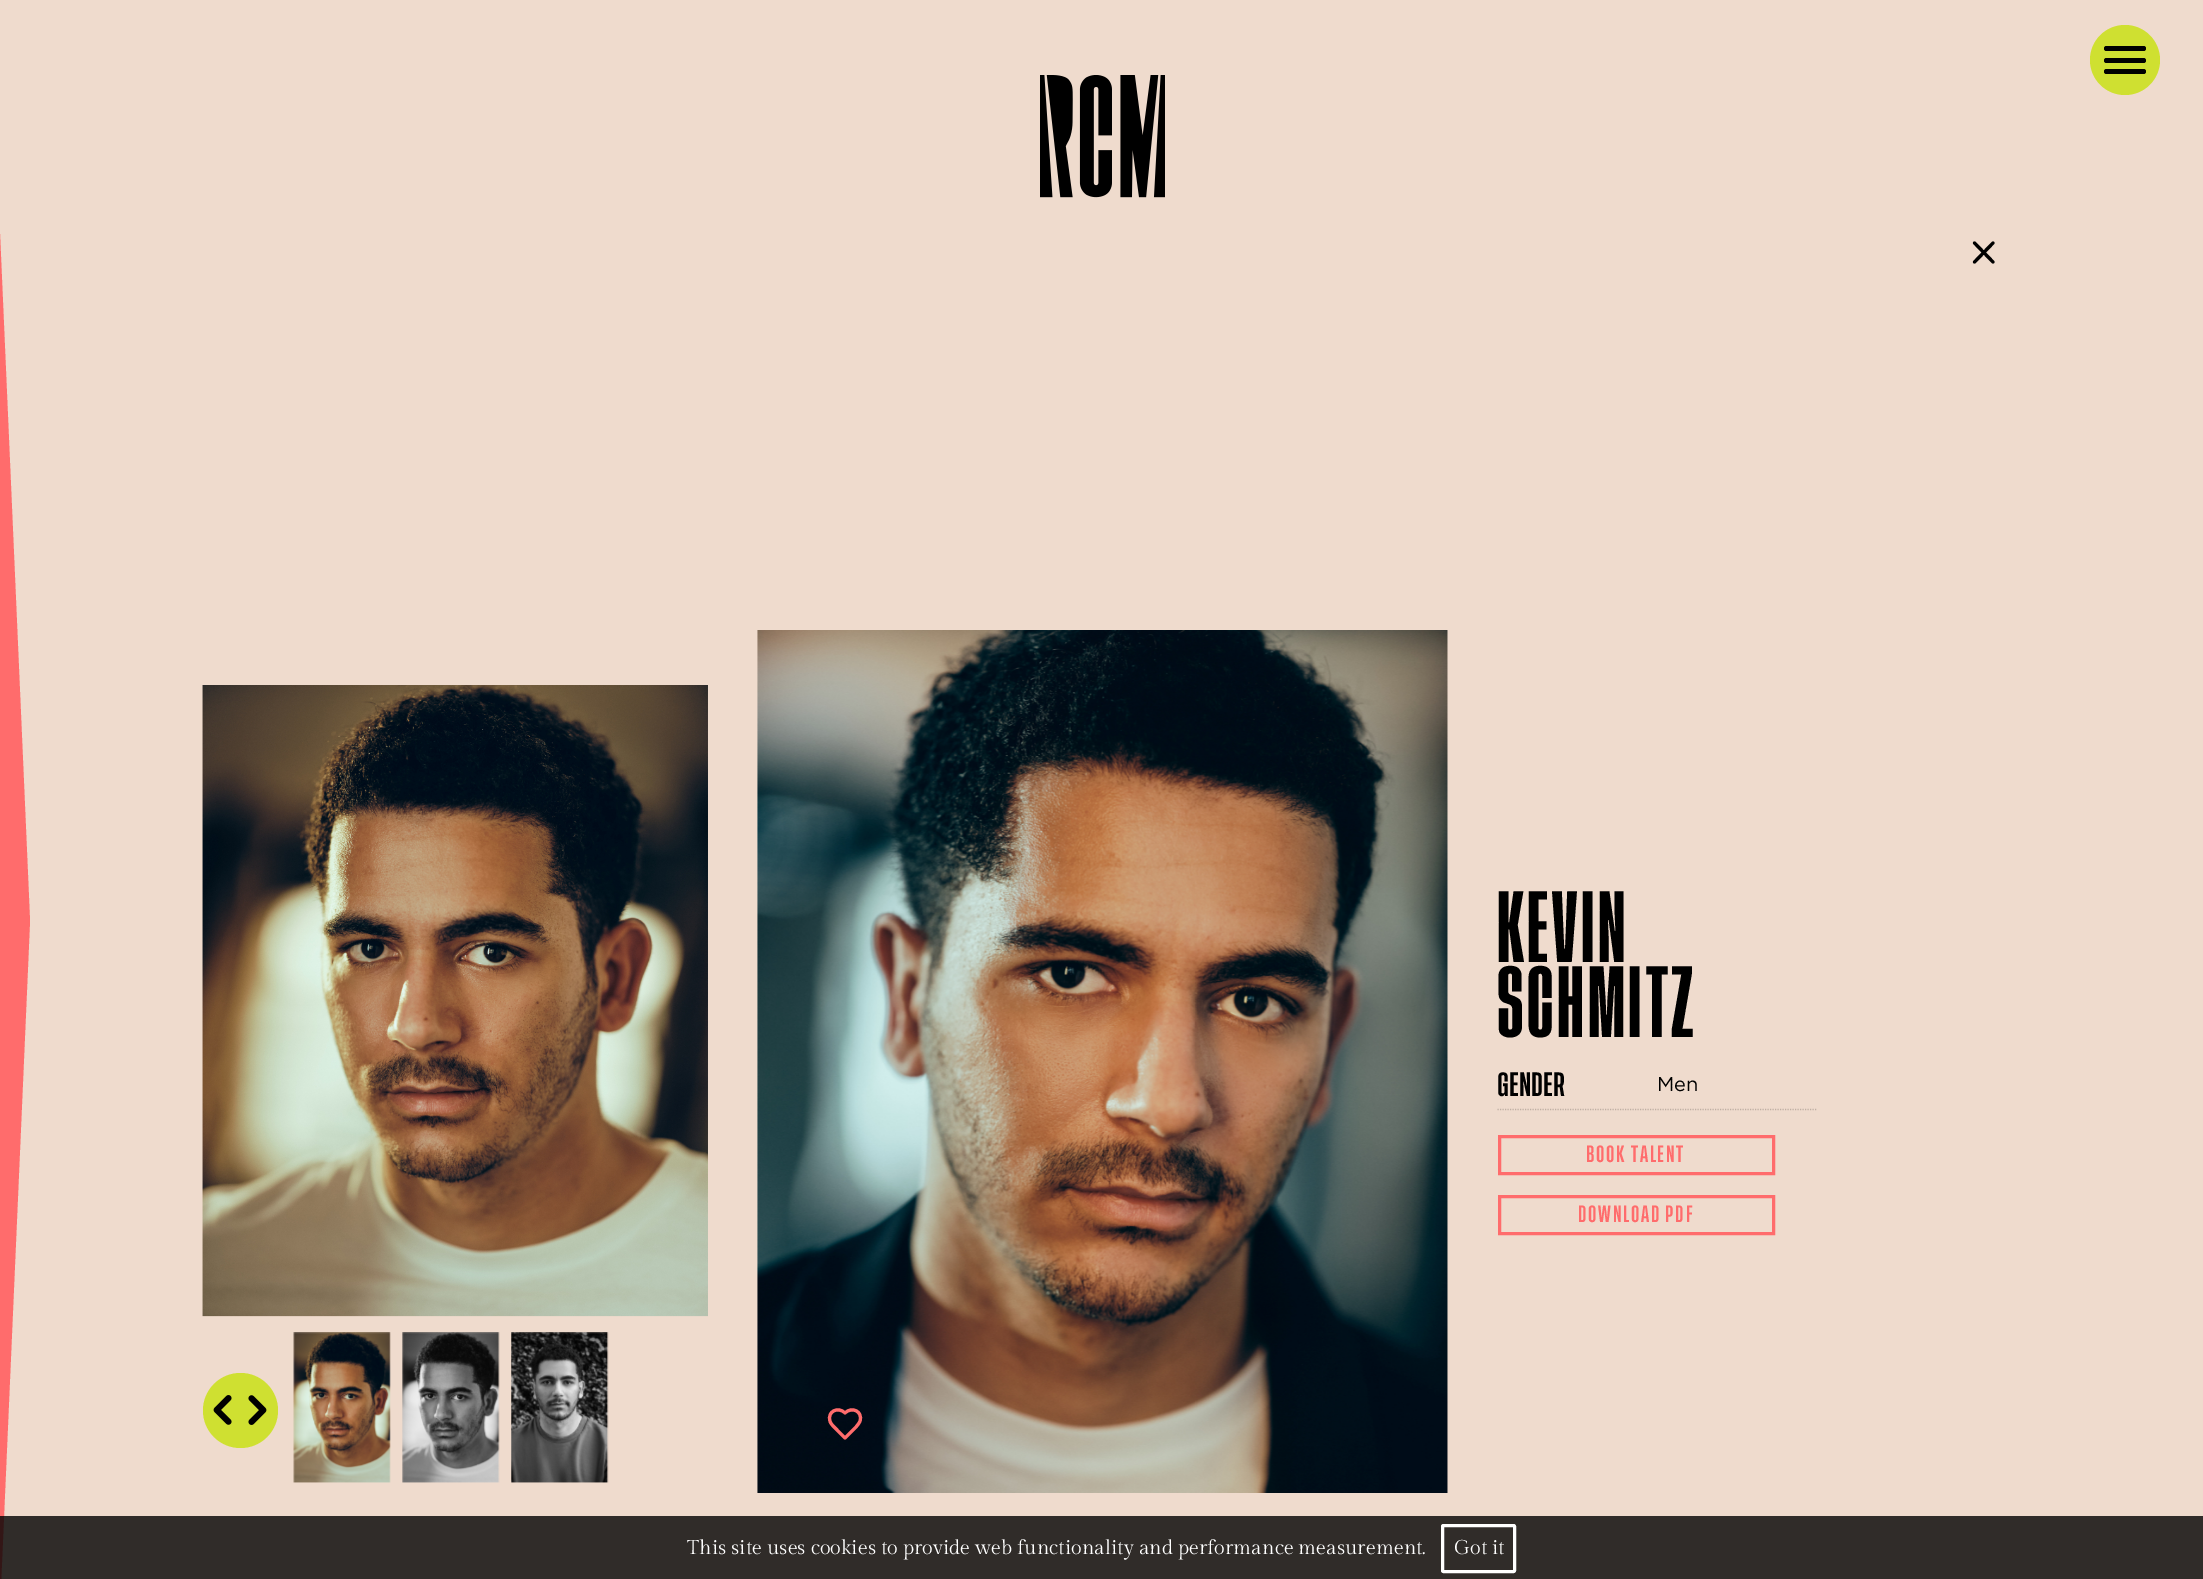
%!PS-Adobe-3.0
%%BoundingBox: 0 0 2203 1579
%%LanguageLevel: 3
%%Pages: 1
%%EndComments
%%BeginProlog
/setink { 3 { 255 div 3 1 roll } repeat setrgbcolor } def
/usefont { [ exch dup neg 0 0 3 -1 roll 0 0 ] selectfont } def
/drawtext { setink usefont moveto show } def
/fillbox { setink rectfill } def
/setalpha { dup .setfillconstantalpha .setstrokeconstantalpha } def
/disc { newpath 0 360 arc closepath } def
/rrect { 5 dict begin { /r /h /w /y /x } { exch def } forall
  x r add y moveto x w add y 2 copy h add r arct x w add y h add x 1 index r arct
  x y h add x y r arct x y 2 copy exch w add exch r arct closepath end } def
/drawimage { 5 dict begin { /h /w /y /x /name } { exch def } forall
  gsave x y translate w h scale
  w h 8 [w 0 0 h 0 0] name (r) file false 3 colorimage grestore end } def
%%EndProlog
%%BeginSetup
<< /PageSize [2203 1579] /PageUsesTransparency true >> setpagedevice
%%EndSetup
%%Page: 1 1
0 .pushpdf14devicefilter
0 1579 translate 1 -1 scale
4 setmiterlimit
0 0 2203 1579 239 219 205 fillbox
207 224 49 setink
2125 60 35 disc fill
0 0 0 setink
2104 46 42 5 2.5 rrect fill
2104 58 42 5 2.5 rrect fill
2104 69 42 5 2.5 rrect fill
(assets/img1.rgb) 1040 75 125 123 drawimage
255 108 108 setink
0 234 moveto 30 921 lineto 0 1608 lineto closepath fill
0 0 0 setink
3.1 setlinewidth
1 setlinecap
1 setlinejoin
1993 243 moveto 1974.5 262 lineto 1974.5 243 moveto 1993 262 lineto stroke
(assets/img2.rgb) 202 685 506 632 drawimage
207 224 49 setink
240.5 1410.5 37.5 disc fill
(assets/img3.rgb) 213 1395 19 30 drawimage
(assets/img4.rgb) 248 1395 19 30 drawimage
(assets/img5.rgb) 293 1332 98 151 drawimage
(assets/img6.rgb) 402 1332 98 151 drawimage
(assets/img7.rgb) 511 1332 98 151 drawimage
(assets/img8.rgb) 757 630 691 863 drawimage
255 108 108 setink
856 1427 moveto 857.5 1425 859.5 1423 860 1421 curveto 863 1411.5 852 1406 845 1413 curveto 838 1406 827 1411.5 830 1421 curveto 831 1425 835 1427.5 837.5 1430.5 curveto 845 1438 lineto closepath stroke
/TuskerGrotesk-Bold 75 usefont
0 0 0 setink
1497 962 moveto 3.75 0 (KEVIN) ashow
1497 1037 moveto 3.75 0 (SCHMITZ) ashow
191 175 164 setink
1.2 setlinewidth
0 setlinecap
0 setlinejoin
[1.25 1.25] 0 setdash
1497.5 1109.5 moveto 1817.5 1109.5 lineto stroke
(GENDER) 1497 1096 /TuskerGrotesk-Medium 25 0 0 0 drawtext
(Men) 1657 1091 /Gotham-Regular 20 0 0 0 drawtext
255 108 108 setink
3 setlinewidth
[] 0 setdash
1499.5 1136.5 274 37 rectstroke
/TuskerGrotesk-Medium 17.5 usefont
1586 1162 moveto 1.75 0 (BOOK TALENT) ashow
1499.5 1196.5 274 37 rectstroke
1578 1222 moveto 1.75 0 (DOWNLOAD PDF) ashow
0.8 setalpha
0 1516 2203 63 0 0 0 fillbox
1 setalpha
(This site uses cookies to provide web functionality and performance measurement.) 687 1554 /GildaDisplay-Regular 20 255 255 255 drawtext
1442.5 1525.5 72 46 1 rrect stroke
(Got it) 1454 1554 /GildaDisplay-Regular 20 255 255 255 drawtext
.poppdf14devicefilter showpage
%%EOF
